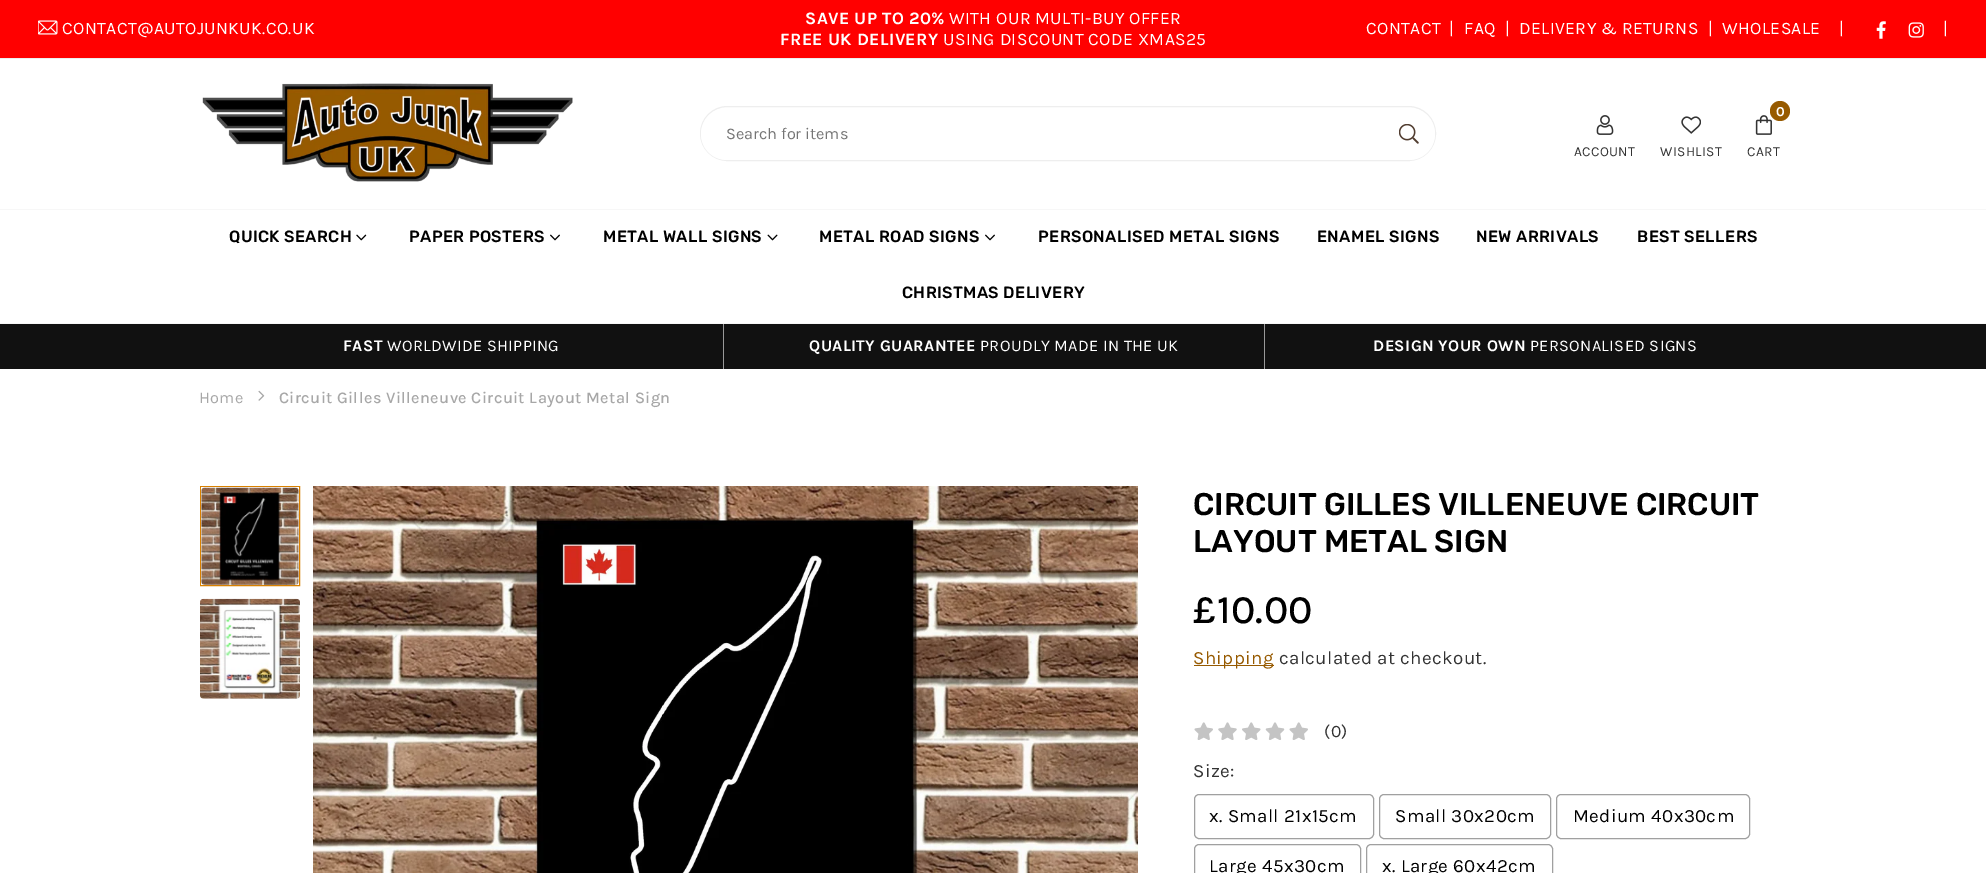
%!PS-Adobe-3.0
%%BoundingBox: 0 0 1986 873
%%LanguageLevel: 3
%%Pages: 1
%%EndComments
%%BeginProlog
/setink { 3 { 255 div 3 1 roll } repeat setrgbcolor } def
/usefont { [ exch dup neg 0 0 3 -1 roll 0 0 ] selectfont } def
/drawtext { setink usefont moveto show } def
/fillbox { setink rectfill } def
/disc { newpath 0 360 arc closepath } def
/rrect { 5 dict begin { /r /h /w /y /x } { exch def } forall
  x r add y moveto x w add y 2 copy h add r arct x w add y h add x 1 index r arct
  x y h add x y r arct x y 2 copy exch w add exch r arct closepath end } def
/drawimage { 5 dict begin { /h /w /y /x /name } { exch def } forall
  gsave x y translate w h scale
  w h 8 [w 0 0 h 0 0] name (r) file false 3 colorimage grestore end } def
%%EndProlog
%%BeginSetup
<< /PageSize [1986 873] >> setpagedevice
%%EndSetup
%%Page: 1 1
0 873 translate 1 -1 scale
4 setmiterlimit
0 0 1986 873 255 255 255 fillbox
0 0 1986 58 255 0 0 fillbox
0 58 1986 1 238 238 238 fillbox
(assets/img1.rgb) 38 20 20 15 drawimage
/Karla-Regular 17.5 usefont
255 255 255 setink
62 34 moveto 0.38 0 (CONTACT@AUTOJUNKUK.CO.UK) ashow
/Karla-Bold 17.5 usefont
805 24 moveto 0.38 0 (SAVE UP TO 20%) ashow
/Karla-Regular 17.5 usefont
949 24 moveto 0.38 0 (WITH OUR MULTI-BUY OFFER) ashow
/Karla-Bold 17.5 usefont
780 45 moveto 0.38 0 (FREE UK DELIVERY) ashow
/Karla-Regular 17.5 usefont
943 45 moveto 0.38 0 (USING DISCOUNT CODE XMAS25) ashow
1366 34 moveto 0.38 0 (CONTACT) ashow
1449 34 moveto 0.38 0 (|) ashow
1464 34 moveto 0.38 0 (FAQ) ashow
1505 34 moveto 0.38 0 (|) ashow
1519 34 moveto 0.38 0 (DELIVERY & RETURNS) ashow
1708 34 moveto 0.38 0 (|) ashow
1722 34 moveto 0.38 0 (WHOLESALE) ashow
1839 34 moveto 0.38 0 (|) ashow
(assets/img2.rgb) 1876 21 10 18 drawimage
(assets/img3.rgb) 1908 22 16 16 drawimage
1943 34 moveto 0.38 0 (|) ashow
(assets/img4.rgb) 202 83 371 99 drawimage
238 238 238 setink
700.5 106.5 735 54 27 rrect stroke
255 255 255 setink
727 108 moveto 1383 108 lineto 1383 160 lineto 727 160 lineto 712.5 160 701 148.5 701 134 curveto 701 119.5 712.5 108 727 108 curveto closepath fill
(Search for items) 726 139 /Karla-Regular 16.25 117 117 117 drawtext
255 255 255 setink
1383 108 moveto 1409 108 lineto 1423.5 108 1435 119.5 1435 134 curveto 1435 148.5 1423.5 160 1409 160 curveto 1383 160 lineto closepath fill
(assets/img5.rgb) 1399 124 20 20 drawimage
(assets/img6.rgb) 1596 115 18 20 drawimage
/Karla-Regular 13.75 usefont
51 51 51 setink
1574 156 moveto 0.38 0 (ACCOUNT) ashow
(assets/img7.rgb) 1681 116 20 18 drawimage
1660 156 moveto 0.38 0 (WISHLIST) ashow
(assets/img8.rgb) 1755 115 17 20 drawimage
151 90 0 setink
1780 111 10 disc fill
/Karla-Bold 13.75 usefont
255 255 255 setink
1776 116 moveto 0.38 0 (0) ashow
/Karla-Regular 13.75 usefont
51 51 51 setink
1747 156 moveto 0.38 0 (CART) ashow
0 209 1986 1 247 247 247 fillbox
0 323 1986 1 247 247 247 fillbox
/Rubik-Medium 16.25 usefont
0 0 0 setink
229 242 moveto 0.38 0 (QUICK SEARCH) ashow
(assets/img9.rgb) 356 234 11 7 drawimage
409 242 moveto 0.38 0 (PAPER POSTERS) ashow
(assets/img10.rgb) 550 234 10 7 drawimage
603 242 moveto 0.38 0 (METAL WALL SIGNS) ashow
(assets/img11.rgb) 767 234 11 7 drawimage
819 242 moveto 0.38 0 (METAL ROAD SIGNS) ashow
(assets/img10.rgb) 985 234 10 7 drawimage
1038 242 moveto 0.38 0 (PERSONALISED METAL SIGNS) ashow
1317 242 moveto 0.38 0 (ENAMEL SIGNS) ashow
1476 242 moveto 0.38 0 (NEW ARRIVALS) ashow
1637 242 moveto 0.38 0 (BEST SELLERS) ashow
902 298 moveto 0.38 0 (CHRISTMAS DELIVERY) ashow
0 324 1986 45 17 17 17 fillbox
/Karla-Bold 16.25 usefont
255 255 255 setink
343 351 moveto 0.38 0 (FAST) ashow
/Karla-Regular 16.25 usefont
387 351 moveto 0.38 0 (WORLDWIDE SHIPPING) ashow
723 324 1 45 153 153 153 fillbox
/Karla-Bold 16.25 usefont
255 255 255 setink
809 351 moveto 0.38 0 (QUALITY GUARANTEE) ashow
/Karla-Regular 16.25 usefont
980 351 moveto 0.38 0 (PROUDLY MADE IN THE UK) ashow
1264 324 1 45 153 153 153 fillbox
/Karla-Bold 16.25 usefont
255 255 255 setink
1373 351 moveto 0.38 0 (DESIGN YOUR OWN) ashow
/Karla-Regular 16.25 usefont
1530 351 moveto 0.38 0 (PERSONALISED SIGNS) ashow
167 167 167 setink
199 403 moveto 0.38 0 (Home) ashow
(assets/img12.rgb) 258 390 7 11 drawimage
/Karla-Medium 16.25 usefont
279 403 moveto 0.38 0 (Circuit Gilles Villeneuve Circuit Layout Metal Sign) ashow
217 129 0 setink
200.5 486.5 99 99 rectstroke
(assets/img13.rgb) 201 487 98 98 drawimage
(assets/img14.rgb) 200 598 100 101 drawimage
(assets/img15.rgb) 313 486 825 387 drawimage
(CIRCUIT GILLES VILLENEUVE CIRCUIT) 1193 515 /Rubik-Medium 31.25 0 0 0 drawtext
(LAYOUT METAL SIGN) 1193 552 /Rubik-Medium 31.25 0 0 0 drawtext
/Karla-Medium 40 usefont
1193 623 moveto 0.38 0 (£10.00) ashow
1194 665 80 1 151 90 0 fillbox
/Karla-Regular 18.75 usefont
1193 664 moveto 0.38 0 (Shipping) ashow
51 51 51 setink
1279 664 moveto 0.38 0 (calculated at checkout.) ashow
(assets/img16.rgb) 1194 722 19 18 drawimage
(assets/img17.rgb) 1218 722 19 18 drawimage
(assets/img18.rgb) 1242 722 19 18 drawimage
(assets/img19.rgb) 1265 722 20 18 drawimage
(assets/img16.rgb) 1289 722 19 18 drawimage
/Karla-Regular 17.5 usefont
1324 737 moveto 0.38 0 (\(0\)) ashow
/Karla-Regular 18.75 usefont
1193 777 moveto 0.38 0 (Size:) ashow
160 160 160 setink
1194.5 794.5 179 44 4.5 rrect stroke
0 0 0 setink
1209 822 moveto 0.38 0 (x. Small 21x15cm) ashow
160 160 160 setink
1379.5 794.5 171 44 4.5 rrect stroke
0 0 0 setink
1395 822 moveto 0.38 0 (Small 30x20cm) ashow
160 160 160 setink
1556.5 794.5 193 44 4.5 rrect stroke
0 0 0 setink
1573 822 moveto 0.38 0 (Medium 40x30cm) ashow
160 160 160 setink
1194.5 844.5 166 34 4.5 rrect stroke
0 0 0 setink
1209 872 moveto 0.38 0 (Large 45x30cm) ashow
160 160 160 setink
1366.5 844.5 186 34 4.5 rrect stroke
0 0 0 setink
1382 872 moveto 0.38 0 (x. Large 60x42cm) ashow
showpage
%%EOF
